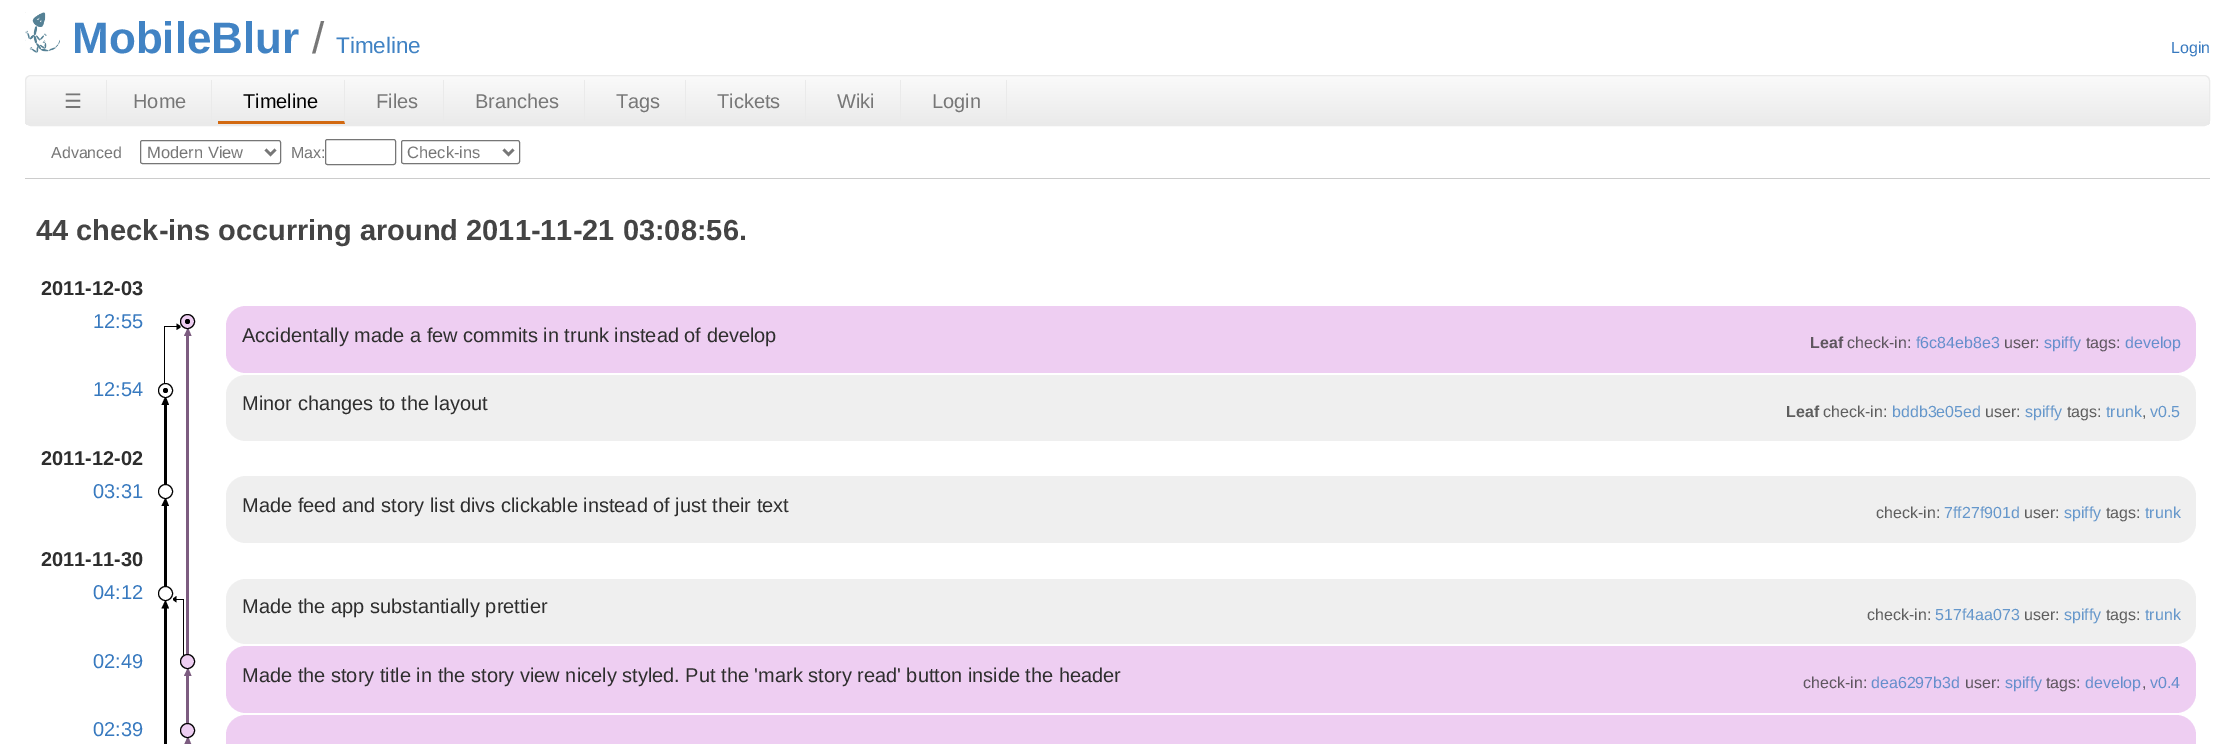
%!PS-Adobe-3.0
%%BoundingBox: 0 0 2235 744
%%LanguageLevel: 3
%%Pages: 1
%%EndComments
%%BeginProlog
/setink { 3 { 255 div 3 1 roll } repeat setrgbcolor } def
/usefont { [ exch dup neg 0 0 3 -1 roll 0 0 ] selectfont } def
/drawtext { setink usefont moveto show } def
/fillbox { setink rectfill } def
/disc { newpath 0 360 arc closepath } def
/rrect { 5 dict begin { /r /h /w /y /x } { exch def } forall
  x r add y moveto x w add y 2 copy h add r arct x w add y h add x 1 index r arct
  x y h add x y r arct x y 2 copy exch w add exch r arct closepath end } def
/drawimage { 5 dict begin { /h /w /y /x /name } { exch def } forall
  gsave x y translate w h scale
  w h 8 [w 0 0 h 0 0] name (r) file false 3 colorimage grestore end } def
%%EndProlog
%%BeginSetup
<< /PageSize [2235 744] >> setpagedevice
%%EndSetup
%%Page: 1 1
0 744 translate 1 -1 scale
4 setmiterlimit
0 0 2235 744 255 255 255 fillbox
(assets/img1.rgb) 25 12 35 41 drawimage
(MobileBlur) 72 53 /LiberationSans-Bold 44 65 131 196 drawtext
(/) 312 53 /LiberationSans-Regular 44 119 119 119 drawtext
(Timeline) 336 53 /LiberationSans-Regular 22.5 65 131 196 drawtext
(Login) 2171 53 /LiberationSans-Regular 16 55 121 191 drawtext
gsave
25 75 2185 51 6 rrect clip newpath
gsave 25 76 moveto 2210 76 lineto 2210 125 lineto 25 125 lineto closepath clip newpath
<< /ShadingType 2 /ColorSpace /DeviceRGB /Coords [1118 76 1118 125] /Extend [true true] /Function << /FunctionType 2 /Domain [0 1] /C0 [0.98 0.98 0.98] /C1 [0.918 0.918 0.918] /N 1 >> >> shfill grestore
grestore
234 234 234 setink
25.5 75.5 2184 50 5.5 rrect stroke
(☰) 64 108 /DejaVuSans-Regular 20 119 119 119 drawtext
106 80 1 41 234 234 234 fillbox
(Home) 133 108 /LiberationSans-Regular 20 119 119 119 drawtext
211 80 1 41 234 234 234 fillbox
(Timeline) 243 108 /LiberationSans-Regular 20 0 0 0 drawtext
234 234 234 setink
345 80 moveto 345 124 lineto 344 121 lineto 344 80 lineto closepath fill
210 105 17 setink
345 124 moveto 218 124 lineto 218 121 lineto 344 121 lineto closepath fill
(Files) 376 108 /LiberationSans-Regular 20 119 119 119 drawtext
443 80 1 41 234 234 234 fillbox
(Branches) 475 108 /LiberationSans-Regular 20 119 119 119 drawtext
584 80 1 41 234 234 234 fillbox
(Tags) 616 108 /LiberationSans-Regular 20 119 119 119 drawtext
685 80 1 41 234 234 234 fillbox
(Tickets) 717 108 /LiberationSans-Regular 20 119 119 119 drawtext
805 80 1 41 234 234 234 fillbox
(Wiki) 837 108 /LiberationSans-Regular 20 119 119 119 drawtext
900 80 1 41 234 234 234 fillbox
(Login) 932 108 /LiberationSans-Regular 20 119 119 119 drawtext
1006 80 1 41 234 234 234 fillbox
25 178 2185 1 204 204 204 fillbox
(Advanced) 51 158 /LiberationSans-Regular 16 119 119 119 drawtext
118 118 118 setink
140.5 140.5 140 23 2 rrect stroke
119 119 119 setink
2.5 setlinewidth
265.5 149.5 moveto 270.5 154.5 lineto 275.5 149.5 lineto stroke
(Modern View) 147 158 /LiberationSans-Regular 16.5 119 119 119 drawtext
(Max:) 291 158 /LiberationSans-Regular 16 119 119 119 drawtext
118 118 118 setink
1 setlinewidth
325.5 139.5 70 25 2 rrect stroke
401.5 140.5 118 23 2 rrect stroke
119 119 119 setink
2.5 setlinewidth
503.5 149.5 moveto 508.5 154.5 lineto 513.5 149.5 lineto stroke
(Check-ins) 407 158 /LiberationSans-Regular 16.5 119 119 119 drawtext
(44 check-ins occurring around 2011-11-21 03:08:56.) 36 240 /LiberationSans-Bold 29 68 68 68 drawtext
(2011-12-03) 41 295 /LiberationSans-Bold 20 46 46 46 drawtext
164 326 1 60 0 0 0 fillbox
164 326 14 1 0 0 0 fillbox
176.5 330 moveto 176.5 323.5 lineto 180.5 326 lineto 180.5 327.5 lineto closepath fill
186 334 3 327 124 92 128 fillbox
191.5 336 moveto 184 336 lineto 188 327.5 lineto closepath fill
238 206 242 setink
187.5 321.5 7 disc gsave fill grestore
0 0 0 setink
1 setlinewidth
stroke
187.5 321.5 2.5 disc fill
164 403 3 88 0 0 0 fillbox
169 405 moveto 161.5 405 lineto 165.5 396 lineto closepath fill
255 255 255 setink
165.5 390.5 7 disc gsave fill grestore
0 0 0 setink
stroke
165.5 390.5 2.5 disc fill
164 504 3 90 0 0 0 fillbox
169 506 moveto 161.5 506 lineto 165.5 497.5 lineto closepath fill
255 255 255 setink
165.5 491.5 7 disc gsave fill grestore
0 0 0 setink
stroke
164 606 3 138 0 0 0 fillbox
169 608.5 moveto 161.5 608.5 lineto 165.5 600 lineto closepath fill
255 255 255 setink
165.5 593.5 7 disc gsave fill grestore
0 0 0 setink
stroke
183 599 1 62 0 0 0 fillbox
175 599 9 1 0 0 0 fillbox
176.5 596 moveto 176.5 602.5 lineto 173 600 lineto 173 598.5 lineto closepath fill
186 674 3 56 124 92 128 fillbox
191.5 676 moveto 184 676 lineto 188 667.5 lineto closepath fill
238 206 242 setink
187.5 661.5 7 disc gsave fill grestore
0 0 0 setink
stroke
124 92 128 setink
191.5 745 moveto 184 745 lineto 188 736 lineto closepath fill
238 206 242 setink
187.5 730.5 7 disc gsave fill grestore
0 0 0 setink
stroke
(12:55) 93 328 /LiberationSans-Regular 20 55 121 191 drawtext
238 206 242 setink
226 306 1970 67 20 rrect fill
(Accidentally made a few commits in trunk instead of develop) 242 342 /LiberationSans-Regular 20 46 46 46 drawtext
(Leaf) 1810 348 /LiberationSans-Bold 16 94 86 95 drawtext
(check-in:) 1847 348 /LiberationSans-Regular 16 94 86 95 drawtext
(f6c84eb8e3) 1916 348 /LiberationSans-Regular 16 101 142 204 drawtext
(user:) 2004 348 /LiberationSans-Regular 16 94 86 95 drawtext
(spiffy) 2044 348 /LiberationSans-Regular 16 101 142 204 drawtext
(tags:) 2086 348 /LiberationSans-Regular 16 94 86 95 drawtext
(develop) 2125 348 /LiberationSans-Regular 16 101 142 204 drawtext
(12:54) 93 396 /LiberationSans-Regular 20 55 121 191 drawtext
239 239 239 setink
226 375 1970 66 20 rrect fill
(Minor changes to the layout) 242 410 /LiberationSans-Regular 20 46 46 46 drawtext
(Leaf) 1786 417 /LiberationSans-Bold 16 94 94 94 drawtext
(check-in:) 1823 417 /LiberationSans-Regular 16 94 94 94 drawtext
(bddb3e05ed) 1892 417 /LiberationSans-Regular 16 101 151 203 drawtext
(user:) 1985 417 /LiberationSans-Regular 16 94 94 94 drawtext
(spiffy) 2025 417 /LiberationSans-Regular 16 101 151 203 drawtext
(tags:) 2067 417 /LiberationSans-Regular 16 94 94 94 drawtext
(trunk) 2106 417 /LiberationSans-Regular 16 101 151 203 drawtext
(,) 2142 417 /LiberationSans-Regular 16 94 94 94 drawtext
(v0.5) 2150 417 /LiberationSans-Regular 16 101 151 203 drawtext
(2011-12-02) 41 465 /LiberationSans-Bold 20 46 46 46 drawtext
(03:31) 93 498 /LiberationSans-Regular 20 55 121 191 drawtext
239 239 239 setink
226 476 1970 67 20 rrect fill
(Made feed and story list divs clickable instead of just their text) 242 512 /LiberationSans-Regular 20 46 46 46 drawtext
(check-in:) 1876 518 /LiberationSans-Regular 16 94 94 94 drawtext
(7ff27f901d) 1944 518 /LiberationSans-Regular 16 101 151 203 drawtext
(user:) 2024 518 /LiberationSans-Regular 16 94 94 94 drawtext
(spiffy) 2064 518 /LiberationSans-Regular 16 101 151 203 drawtext
(tags:) 2106 518 /LiberationSans-Regular 16 94 94 94 drawtext
(trunk) 2145 518 /LiberationSans-Regular 16 101 151 203 drawtext
(2011-11-30) 41 566 /LiberationSans-Bold 20 46 46 46 drawtext
(04:12) 93 599 /LiberationSans-Regular 20 55 121 191 drawtext
239 239 239 setink
226 579 1970 65 20 rrect fill
(Made the app substantially prettier) 242 613 /LiberationSans-Regular 20 46 46 46 drawtext
(check-in:) 1867 620 /LiberationSans-Regular 16 94 94 94 drawtext
(517f4aa073) 1935 620 /LiberationSans-Regular 16 101 151 203 drawtext
(user:) 2024 620 /LiberationSans-Regular 16 94 94 94 drawtext
(spiffy) 2064 620 /LiberationSans-Regular 16 101 151 203 drawtext
(tags:) 2106 620 /LiberationSans-Regular 16 94 94 94 drawtext
(trunk) 2145 620 /LiberationSans-Regular 16 101 151 203 drawtext
(02:49) 93 668 /LiberationSans-Regular 20 55 121 191 drawtext
238 206 242 setink
226 646 1970 67 20 rrect fill
(Made the story title in the story view nicely styled. Put the 'mark story read' button inside the header) 242 682 /LiberationSans-Regular 20 46 46 46 drawtext
(check-in:) 1803 688 /LiberationSans-Regular 16 94 86 95 drawtext
(dea6297b3d) 1871 688 /LiberationSans-Regular 16 101 142 204 drawtext
(user:) 1965 688 /LiberationSans-Regular 16 94 86 95 drawtext
(spiffy) 2005 688 /LiberationSans-Regular 16 101 142 204 drawtext
(tags:) 2046 688 /LiberationSans-Regular 16 94 86 95 drawtext
(develop) 2085 688 /LiberationSans-Regular 16 101 142 204 drawtext
(,) 2142 688 /LiberationSans-Regular 16 94 86 95 drawtext
(v0.4) 2150 688 /LiberationSans-Regular 16 101 142 204 drawtext
(02:39) 93 736 /LiberationSans-Regular 20 55 121 191 drawtext
238 206 242 setink
226 715 1970 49 20 rrect fill
showpage
%%EOF
